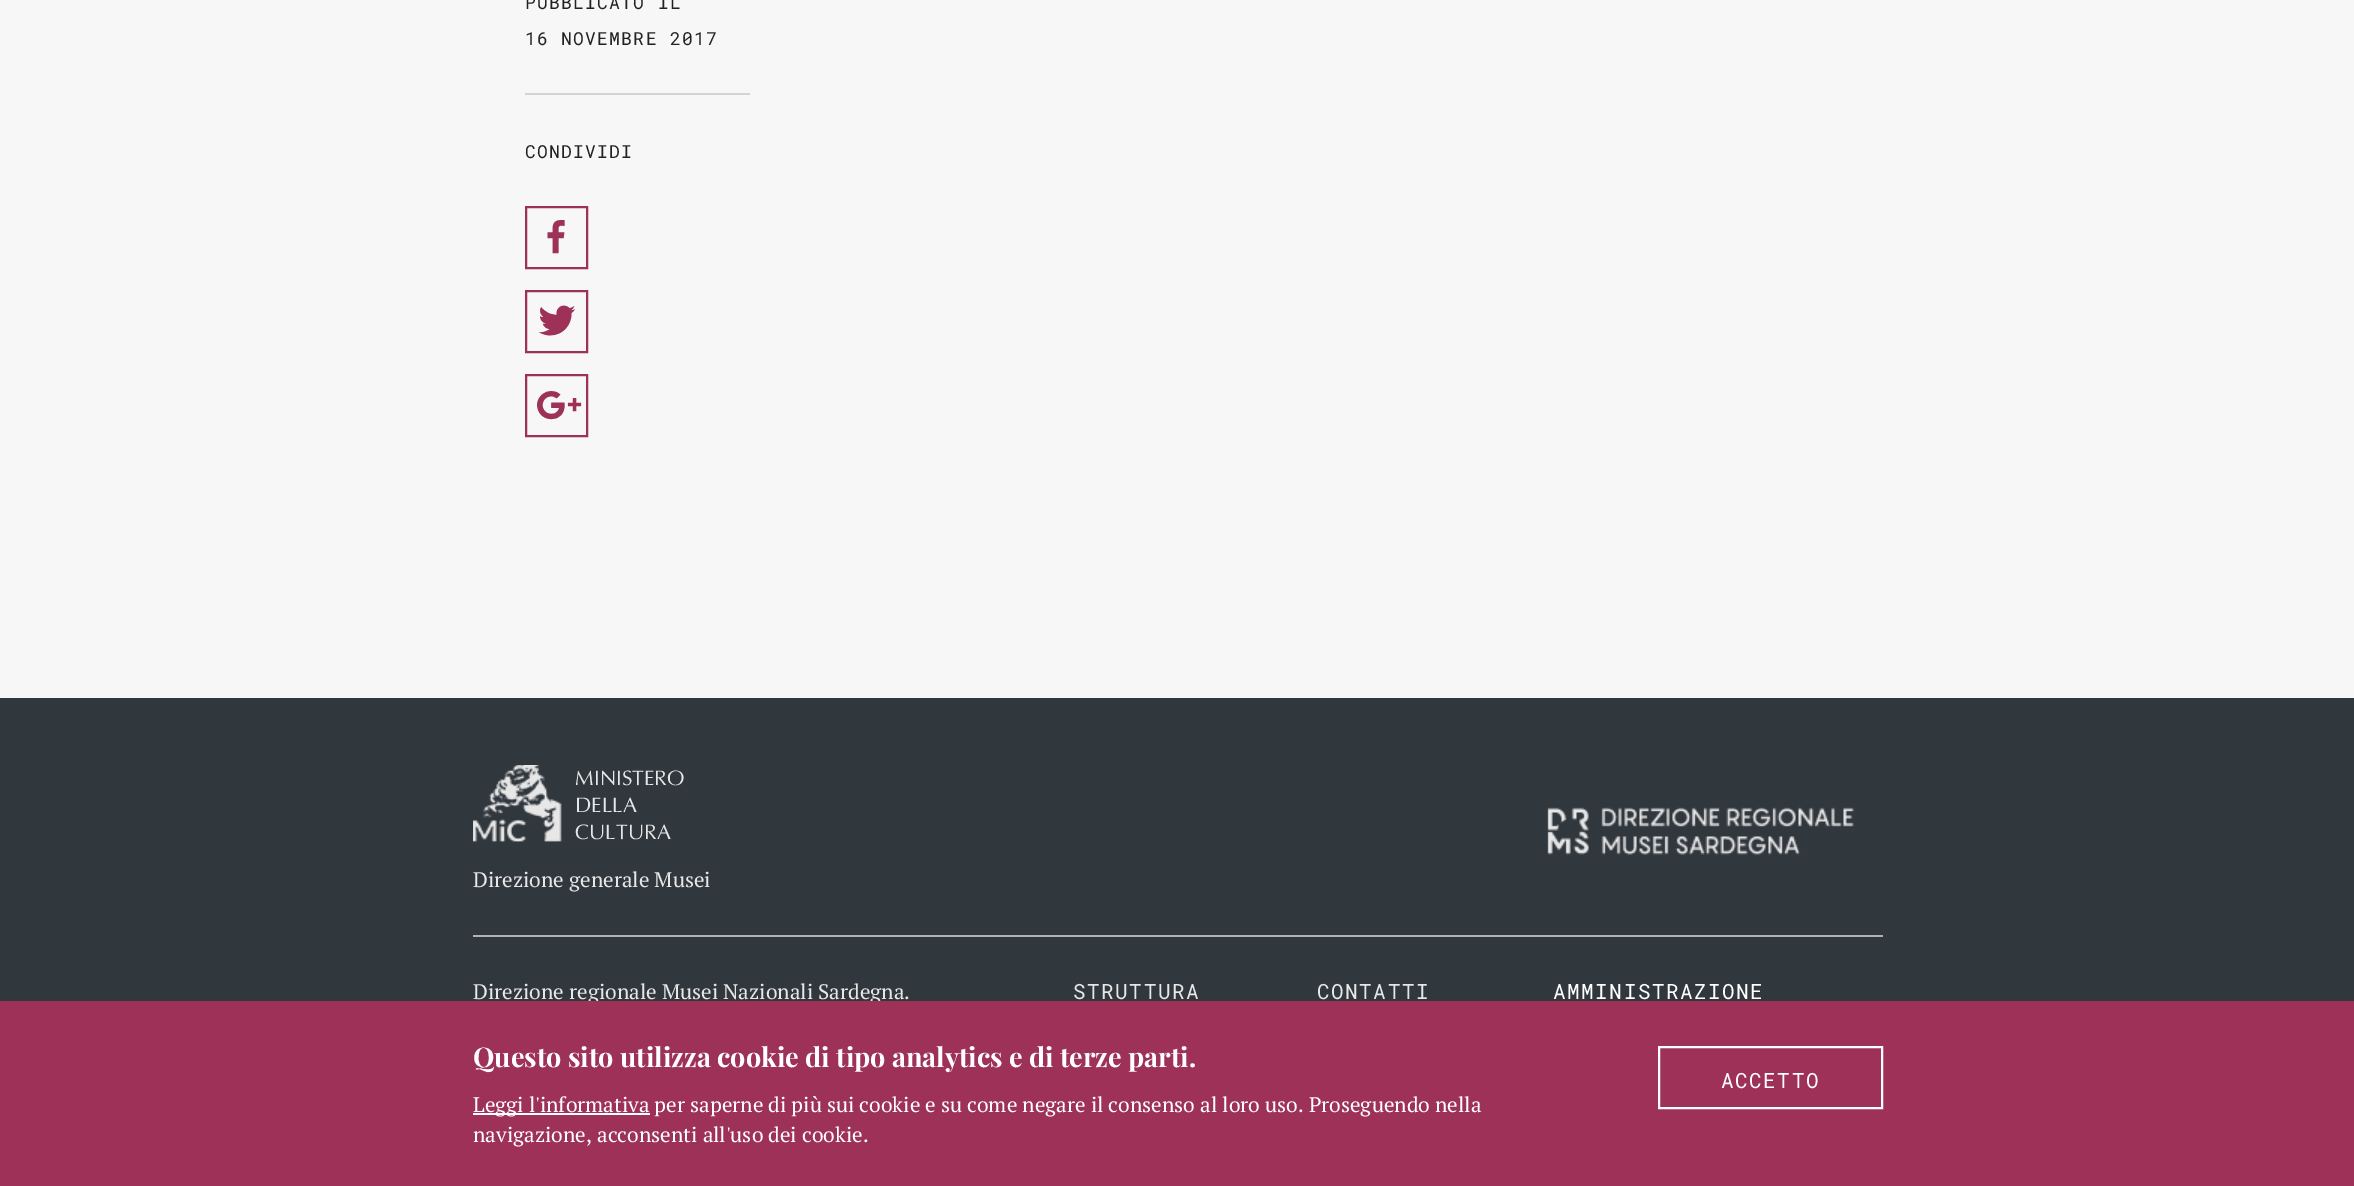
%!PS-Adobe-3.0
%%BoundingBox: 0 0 2354 1186
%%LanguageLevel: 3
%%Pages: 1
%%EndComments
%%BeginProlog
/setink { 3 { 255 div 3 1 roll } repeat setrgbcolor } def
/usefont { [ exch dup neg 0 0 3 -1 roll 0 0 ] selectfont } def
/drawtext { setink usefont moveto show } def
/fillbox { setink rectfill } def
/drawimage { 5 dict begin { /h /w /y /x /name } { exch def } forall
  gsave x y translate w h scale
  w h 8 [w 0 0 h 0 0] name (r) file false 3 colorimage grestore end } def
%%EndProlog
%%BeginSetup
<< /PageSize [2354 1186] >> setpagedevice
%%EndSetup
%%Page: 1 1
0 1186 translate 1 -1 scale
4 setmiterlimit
0 0 2354 1186 247 247 247 fillbox
525 93 225 2 212 212 212 fillbox
/RobotoMono-Regular 18 usefont
34 34 34 setink
525 9 moveto 1.25 0 (PUBBLICATO IL) ashow
525 45 moveto 1.25 0 (16 NOVEMBRE 2017) ashow
525 158 moveto 1.25 0 (CONDIVIDI) ashow
(assets/img1.rgb) 547 220 18 34 drawimage
157 49 88 setink
2 setlinewidth
526 207 61 61 rectstroke
(assets/img2.rgb) 539 305 37 31 drawimage
526 291 61 61 rectstroke
(assets/img3.rgb) 537 391 45 29 drawimage
526 375 61 61 rectstroke
0 698 2354 303 48 55 61 fillbox
473 935 1410 2 176 179 180 fillbox
(assets/img4.rgb) 473 765 89 77 drawimage
(MINISTERO) 575 785 /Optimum-Regular 21 231 231 231 drawtext
(DELLA) 575 812 /Optimum-Regular 21 231 231 231 drawtext
(CULTURA) 575 839 /Optimum-Regular 21 231 231 231 drawtext
(assets/img5.rgb) 1547 807 308 48 drawimage
(Direzione generale Musei) 473 887 /PTSerif-Regular 21 231 231 231 drawtext
(Direzione regionale Musei Nazionali Sardegna.) 473 999 /PTSerif-Regular 21 231 231 231 drawtext
/RobotoMono-Regular 21 usefont
1073 999 moveto 1.5 0 (STRUTTURA) ashow
1317 999 moveto 1.5 0 (CONTATTI) ashow
255 255 255 setink
1553 999 moveto 1.5 0 (AMMINISTRAZIONE) ashow
0 1001 2354 185 157 49 88 fillbox
(Questo sito utilizza cookie di tipo analytics e di terze parti.) 473 1067 /PlayfairDisplay-Bold 27 255 255 255 drawtext
473 1113 177 2 255 255 255 fillbox
(Leggi l'informativa per saperne di più sui cookie e su come negare il consenso al loro uso. Proseguendo nella) 473 1112 /PTSerif-Regular 21 255 255 255 drawtext
(navigazione, acconsenti all'uso dei cookie.) 473 1142 /PTSerif-Regular 21 255 255 255 drawtext
1659 1047 223 61 rectstroke
/RobotoMono-Regular 21 usefont
1721 1088 moveto 1.5 0 (ACCETTO) ashow
showpage
%%EOF
